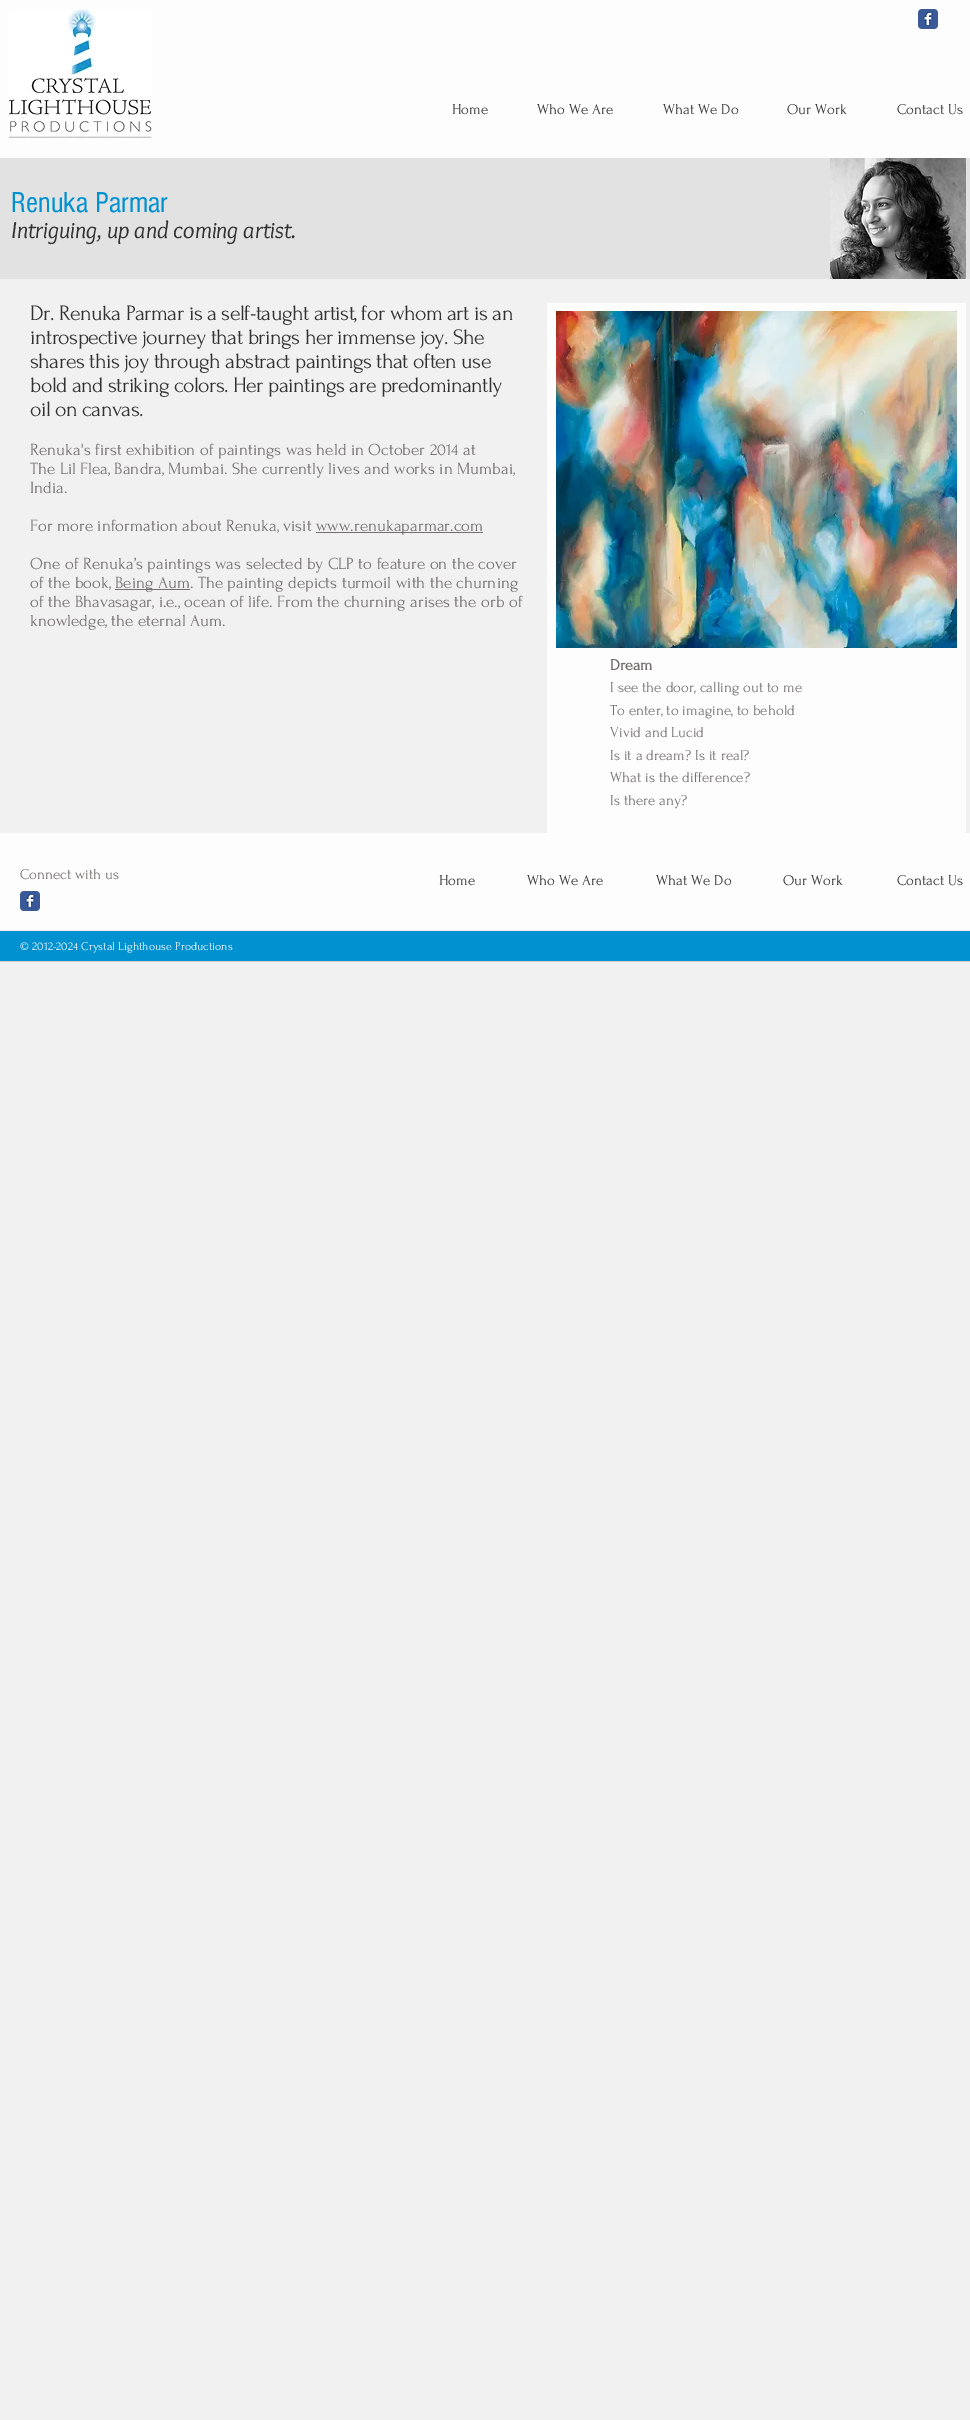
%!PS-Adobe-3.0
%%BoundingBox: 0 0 970 2420
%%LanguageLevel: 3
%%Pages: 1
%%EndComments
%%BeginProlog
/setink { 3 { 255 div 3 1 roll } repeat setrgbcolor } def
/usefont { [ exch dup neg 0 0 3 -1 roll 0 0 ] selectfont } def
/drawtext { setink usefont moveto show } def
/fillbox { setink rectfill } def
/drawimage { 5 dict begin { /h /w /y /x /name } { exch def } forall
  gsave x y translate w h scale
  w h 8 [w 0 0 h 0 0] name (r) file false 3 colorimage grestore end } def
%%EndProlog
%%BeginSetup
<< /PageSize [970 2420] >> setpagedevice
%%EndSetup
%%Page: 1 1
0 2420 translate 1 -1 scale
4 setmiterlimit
0 0 970 2420 241 241 241 fillbox
0 0 970 158 253 253 254 fillbox
(assets/img1.rgb) 9 9 143 129 drawimage
(assets/img2.rgb) 918 9 20 20 drawimage
(Home) 452 114 /Forum-Regular 15 51 49 49 drawtext
(Who We Are) 537 114 /Forum-Regular 15 51 49 49 drawtext
(What We Do) 663 114 /Forum-Regular 15 51 49 49 drawtext
(Our Work) 787 114 /Forum-Regular 15 51 49 49 drawtext
(Contact Us) 897 114 /Forum-Regular 15 51 49 49 drawtext
0 158 970 121 226 226 226 fillbox
(Renuka Parmar) 11 212 /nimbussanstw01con-Regular 30 0 145 208 drawtext
(Intriguing, up and coming artist.) 11 238 /Overlock-Italic 24 51 49 49 drawtext
(assets/img3.rgb) 830 158 136 121 drawimage
/Forum-Regular 22 usefont
30 320 moveto -0.65 0 (Dr. Renuka Parmar is a self-taught artist, for whom art is an) ashow
30 344 moveto -0.65 0 (introspective journey that brings her immense joy. She) ashow
30 368 moveto -0.65 0 (shares this joy through abstract paintings that often use) ashow
30 392 moveto -0.65 0 (bold and striking colors. Her paintings are predominantly) ashow
30 416 moveto -0.65 0 (oil on canvas.) ashow
(Renuka's first exhibition of paintings was held in October 2014 at) 30 455 /Forum-Regular 17 115 111 111 drawtext
(The Lil Flea, Bandra, Mumbai. She currently lives and works in Mumbai,) 30 474 /Forum-Regular 17 115 111 111 drawtext
(India.) 30 493 /Forum-Regular 17 115 111 111 drawtext
(For more information about Renuka, visit) 30 531 /Forum-Regular 17 115 111 111 drawtext
316 532 167 1 115 111 111 fillbox
(www.renukaparmar.com) 316 531 /Forum-Regular 17 115 111 111 drawtext
(One of Renuka’s paintings was selected by CLP to feature on the cover) 30 569 /Forum-Regular 17 115 111 111 drawtext
(of the book,) 30 588 /Forum-Regular 17 115 111 111 drawtext
115 589 75 1 115 111 111 fillbox
(Being Aum. The painting depicts turmoil with the churning) 115 588 /Forum-Regular 17 115 111 111 drawtext
(of the Bhavasagar, i.e., ocean of life. From the churning arises the orb of) 30 607 /Forum-Regular 17 115 111 111 drawtext
(knowledge, the eternal Aum.) 30 626 /Forum-Regular 17 115 111 111 drawtext
547 303 419 530 253 253 254 fillbox
(assets/img4.rgb) 556 311 401 337 drawimage
(Dream) 610 670 /Forum-Bold 16 115 111 111 drawtext
(I see the door, calling out to me) 610 692 /Forum-Regular 15 115 111 111 drawtext
(To enter, to imagine, to behold) 610 715 /Forum-Regular 15 115 111 111 drawtext
(Vivid and Lucid) 610 737 /Forum-Regular 15 115 111 111 drawtext
(Is it a dream? Is it real?) 610 760 /Forum-Regular 15 115 111 111 drawtext
(What is the difference?) 610 782 /Forum-Regular 15 115 111 111 drawtext
(Is there any?) 610 805 /Forum-Regular 15 115 111 111 drawtext
0 833 970 97 253 253 254 fillbox
(Connect with us) 20 879 /Forum-Regular 15 115 111 111 drawtext
(Home) 439 885 /Forum-Regular 15 51 49 49 drawtext
(Who We Are) 527 885 /Forum-Regular 15 51 49 49 drawtext
(What We Do) 656 885 /Forum-Regular 15 51 49 49 drawtext
(Our Work) 783 885 /Forum-Regular 15 51 49 49 drawtext
(Contact Us) 897 885 /Forum-Regular 15 51 49 49 drawtext
(assets/img2.rgb) 20 891 20 20 drawimage
0 931 970 30 0 145 208 fillbox
0 961 970 1 208 206 206 fillbox
(© 2012-2024 Crystal Lighthouse Productions) 20 950 /Forum-Regular 12 253 253 254 drawtext
showpage
%%EOF
